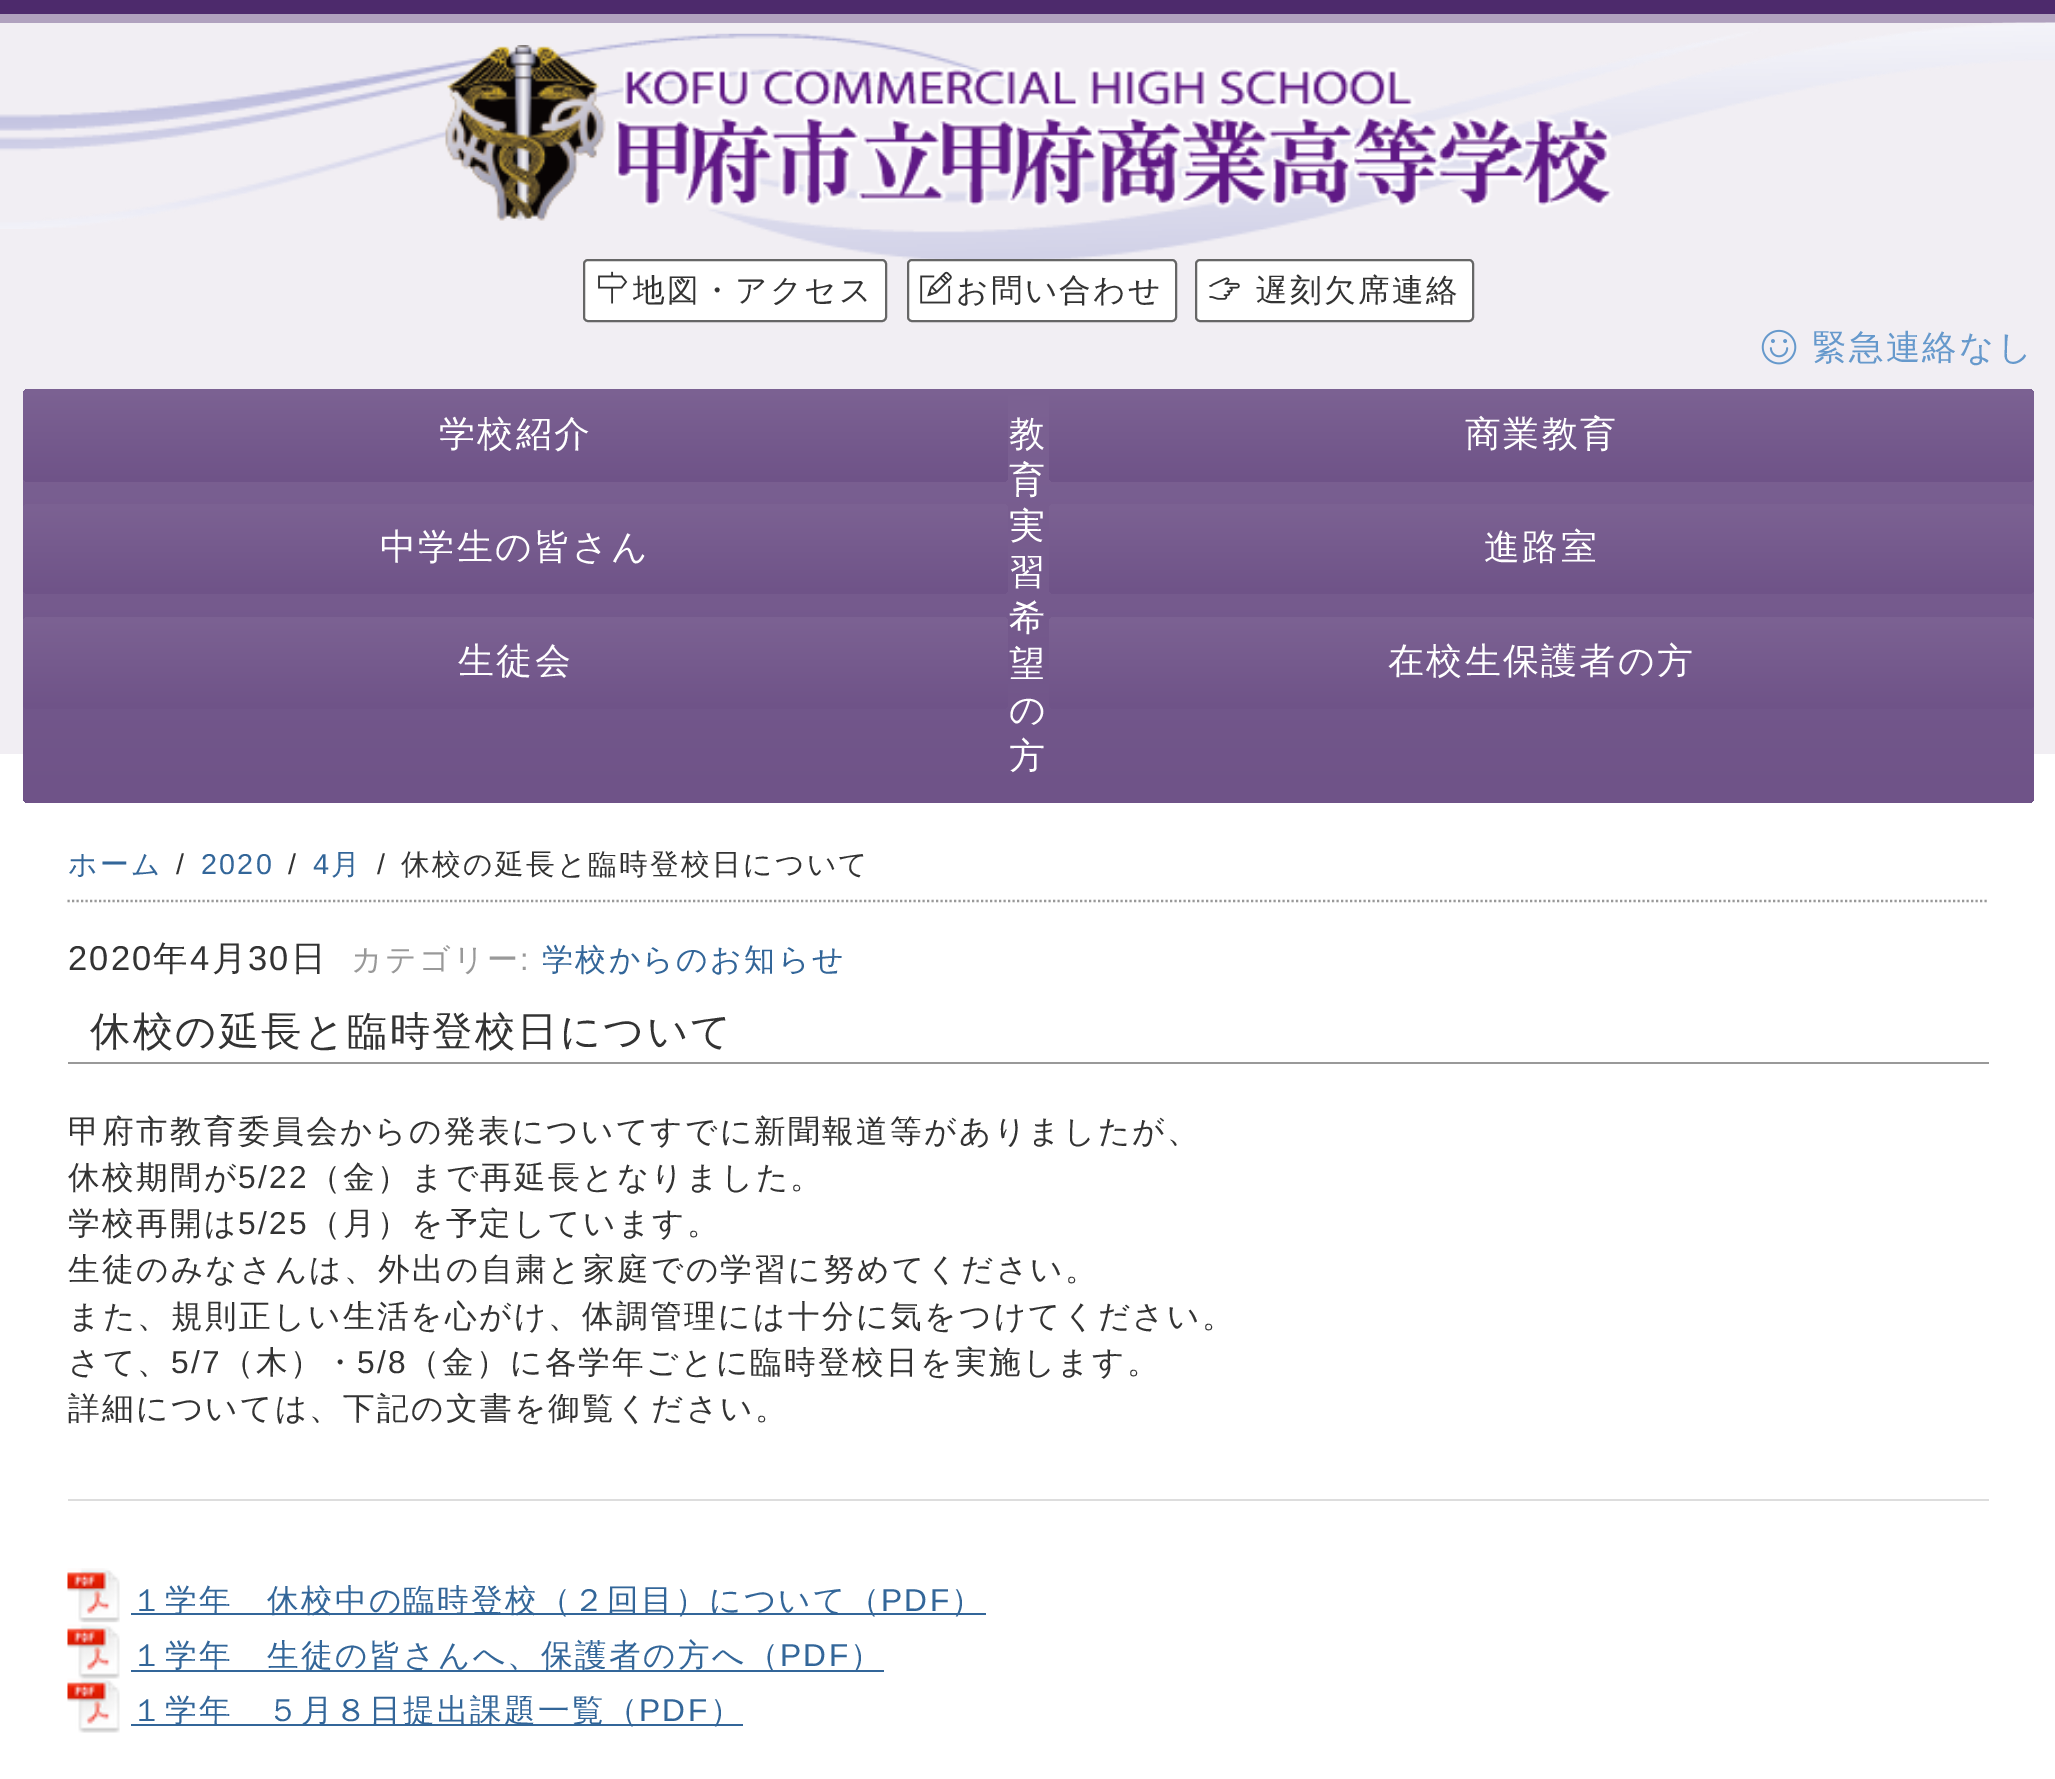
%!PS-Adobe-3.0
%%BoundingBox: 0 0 2055 1779
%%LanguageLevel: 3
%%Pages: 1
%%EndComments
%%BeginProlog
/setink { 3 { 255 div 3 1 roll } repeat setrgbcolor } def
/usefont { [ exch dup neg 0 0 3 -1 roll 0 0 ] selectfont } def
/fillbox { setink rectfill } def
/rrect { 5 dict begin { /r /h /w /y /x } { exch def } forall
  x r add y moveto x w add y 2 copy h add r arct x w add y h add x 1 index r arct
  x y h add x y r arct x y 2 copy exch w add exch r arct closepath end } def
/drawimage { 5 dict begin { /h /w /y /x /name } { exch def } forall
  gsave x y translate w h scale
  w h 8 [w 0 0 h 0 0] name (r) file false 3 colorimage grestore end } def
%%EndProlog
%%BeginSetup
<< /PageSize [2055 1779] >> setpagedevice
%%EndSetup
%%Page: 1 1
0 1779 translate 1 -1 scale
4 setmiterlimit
0 0 2055 1779 255 255 255 fillbox
0 0 2055 14 77 42 108 fillbox
0 23 2055 731 241 238 243 fillbox
0 14 2055 9 176 161 190 fillbox
(assets/img2.rgb) 688 22 1367 238 drawimage
(assets/img1.rgb) 0 33 1006 196 drawimage
(assets/img3.rgb) 445 45 1169 176 drawimage
255 255 255 setink
584 260 302 61 4 rrect gsave fill grestore
102 102 102 setink
2 setlinewidth
stroke
(assets/img4.rgb) 598 271 30 33 drawimage
/WenQuanYiZenHei-Medium 31.7 usefont
51 51 51 setink
633 301 moveto 2.25 0 (地図・アクセス) ashow
255 255 255 setink
908 260 268 61 4 rrect gsave fill grestore
102 102 102 setink
stroke
(assets/img5.rgb) 920 271 32 33 drawimage
51 51 51 setink
956 301 moveto 2.25 0 (お問い合わせ) ashow
255 255 255 setink
1196 260 277 61 4 rrect gsave fill grestore
102 102 102 setink
stroke
(assets/img6.rgb) 1209 277 31 23 drawimage
51 51 51 setink
1256 301 moveto 2.25 0 (遅刻欠席連絡) ashow
(assets/img7.rgb) 1761 329 36 36 drawimage
/WenQuanYiZenHei-Medium 34.5 usefont
102 153 204 setink
1812 359 moveto 2.25 0 (緊急連絡なし) ashow
gsave 23 389 2011 414 5 rrect clip newpath
<< /ShadingType 2 /ColorSpace /DeviceRGB /Coords [1028 389 1028 803] /Extend [true true] /Function << /FunctionType 2 /Domain [0 1] /C0 [0.486 0.384 0.576] /C1 [0.435 0.325 0.533] /N 1 >> >> shfill grestore
gsave 23 389 985 93 5 rrect clip newpath
<< /ShadingType 2 /ColorSpace /DeviceRGB /Coords [515 389 515 482] /Extend [true true] /Function << /FunctionType 2 /Domain [0 1] /C0 [0.486 0.384 0.576] /C1 [0.435 0.325 0.533] /N 1 >> >> shfill grestore
/WenQuanYiZenHei-Medium 36 usefont
255 255 255 setink
439 446 moveto 2.25 0 (学校紹介) ashow
1009 446 moveto 2.25 0 (教) ashow
1009 492 moveto 2.25 0 (育) ashow
1009 538 moveto 2.25 0 (実) ashow
1009 584 moveto 2.25 0 (習) ashow
1009 630 moveto 2.25 0 (希) ashow
1009 676 moveto 2.25 0 (望) ashow
1009 722 moveto 2.25 0 (の) ashow
1009 768 moveto 2.25 0 (方) ashow
gsave 1049 389 985 93 5 rrect clip newpath
<< /ShadingType 2 /ColorSpace /DeviceRGB /Coords [1541 389 1541 482] /Extend [true true] /Function << /FunctionType 2 /Domain [0 1] /C0 [0.486 0.384 0.576] /C1 [0.435 0.325 0.533] /N 1 >> >> shfill grestore
1465 446 moveto 2.25 0 (商業教育) ashow
gsave 23 504 985 90 5 rrect clip newpath
<< /ShadingType 2 /ColorSpace /DeviceRGB /Coords [515 504 515 594] /Extend [true true] /Function << /FunctionType 2 /Domain [0 1] /C0 [0.486 0.384 0.576] /C1 [0.435 0.325 0.533] /N 1 >> >> shfill grestore
380 559 moveto 2.25 0 (中学生の皆さん) ashow
gsave 1049 504 985 90 5 rrect clip newpath
<< /ShadingType 2 /ColorSpace /DeviceRGB /Coords [1541 504 1541 594] /Extend [true true] /Function << /FunctionType 2 /Domain [0 1] /C0 [0.486 0.384 0.576] /C1 [0.435 0.325 0.533] /N 1 >> >> shfill grestore
1484 559 moveto 2.25 0 (進路室) ashow
gsave 23 617 985 92 5 rrect clip newpath
<< /ShadingType 2 /ColorSpace /DeviceRGB /Coords [515 617 515 709] /Extend [true true] /Function << /FunctionType 2 /Domain [0 1] /C0 [0.486 0.384 0.576] /C1 [0.435 0.325 0.533] /N 1 >> >> shfill grestore
458 673 moveto 2.25 0 (生徒会) ashow
gsave 1049 617 985 92 5 rrect clip newpath
<< /ShadingType 2 /ColorSpace /DeviceRGB /Coords [1541 617 1541 709] /Extend [true true] /Function << /FunctionType 2 /Domain [0 1] /C0 [0.486 0.384 0.576] /C1 [0.435 0.325 0.533] /N 1 >> >> shfill grestore
1388 673 moveto 2.25 0 (在校生保護者の方) ashow
153 153 153 setink
2.2 setlinewidth
[2.25 2.25] 0 setdash
67.5 901 moveto 1989 901 lineto stroke
/WenQuanYiZenHei-Medium 28.75 usefont
51 102 153 setink
68 874 moveto 2.25 0 (ホーム) ashow
/LiberationSans-Regular 28.75 usefont
51 51 51 setink
176 874 moveto 2.25 0 (/) ashow
51 102 153 setink
201 874 moveto 2.25 0 (2020) ashow
51 51 51 setink
288 874 moveto 2.25 0 (/) ashow
51 102 153 setink
313 874 moveto 2.25 0 (4) ashow
/WenQuanYiZenHei-Medium 28.75 usefont
331 874 moveto 2.25 0 (月) ashow
/LiberationSans-Regular 28.75 usefont
51 51 51 setink
377 874 moveto 2.25 0 (/) ashow
/WenQuanYiZenHei-Medium 28.75 usefont
401 874 moveto 2.25 0 (休校の延長と臨時登校日について) ashow
/LiberationSans-Regular 34.5 usefont
68 970 moveto 2.25 0 (2020) ashow
/WenQuanYiZenHei-Medium 34.5 usefont
153 970 moveto 2.25 0 (年) ashow
/LiberationSans-Regular 34.5 usefont
190 970 moveto 2.25 0 (4) ashow
/WenQuanYiZenHei-Medium 34.5 usefont
212 970 moveto 2.25 0 (月) ashow
/LiberationSans-Regular 34.5 usefont
248 970 moveto 2.25 0 (30) ashow
/WenQuanYiZenHei-Medium 34.5 usefont
291 970 moveto 2.25 0 (日) ashow
/WenQuanYiZenHei-Medium 31 usefont
153 153 153 setink
351 970 moveto 2.25 0 (カテゴリー) ashow
/LiberationSans-Regular 31 usefont
520 970 moveto 2.25 0 (:) ashow
/WenQuanYiZenHei-Medium 31 usefont
51 102 153 setink
542 970 moveto 2.25 0 (学校からのお知らせ) ashow
68 1062 1921 2 153 153 153 fillbox
/WenQuanYiZenHei-Medium 40.3 usefont
51 51 51 setink
90 1045 moveto 2.25 0 (休校の延長と臨時登校日について) ashow
/WenQuanYiZenHei-Medium 31.7 usefont
68 1142 moveto 2.25 0 (甲府市教育委員会からの発表についてすでに新聞報道等がありましたが、) ashow
68 1188 moveto 2.25 0 (休校期間が) ashow
/LiberationSans-Regular 31.7 usefont
238 1188 moveto 2.25 0 (5/22) ashow
/WenQuanYiZenHei-Medium 31.7 usefont
309 1188 moveto 2.25 0 (（金）まで再延長となりました。) ashow
68 1234 moveto 2.25 0 (学校再開は) ashow
/LiberationSans-Regular 31.7 usefont
238 1234 moveto 2.25 0 (5/25) ashow
/WenQuanYiZenHei-Medium 31.7 usefont
309 1234 moveto 2.25 0 (（月）を予定しています。) ashow
68 1280 moveto 2.25 0 (生徒のみなさんは、外出の自粛と家庭での学習に努めてください。) ashow
68 1327 moveto 2.25 0 (また、規則正しい生活を心がけ、体調管理には十分に気をつけてください。) ashow
68 1373 moveto 2.25 0 (さて、) ashow
/LiberationSans-Regular 31.7 usefont
171 1373 moveto 2.25 0 (5/7) ashow
/WenQuanYiZenHei-Medium 31.7 usefont
222 1373 moveto 2.25 0 (（木）・) ashow
/LiberationSans-Regular 31.7 usefont
357 1373 moveto 2.25 0 (5/8) ashow
/WenQuanYiZenHei-Medium 31.7 usefont
408 1373 moveto 2.25 0 (（金）に各学年ごとに臨時登校日を実施します。) ashow
68 1419 moveto 2.25 0 (詳細については、下記の文書を御覧ください。) ashow
68 1499 1921 2 221 221 221 fillbox
(assets/img8.rgb) 67 1568 53 55 drawimage
131 1613 855 2 51 102 153 fillbox
131 1611 moveto 2.25 0 (１学年　休校中の臨時登校（２回目）について（) ashow
/LiberationSans-Regular 31.7 usefont
881 1611 moveto 2.25 0 (PDF) ashow
/WenQuanYiZenHei-Medium 31.7 usefont
951 1611 moveto 2.25 0 (）) ashow
(assets/img9.rgb) 67 1624 53 55 drawimage
131 1670 753 2 51 102 153 fillbox
131 1666 moveto 2.25 0 (１学年　生徒の皆さんへ、保護者の方へ（) ashow
/LiberationSans-Regular 31.7 usefont
780 1666 moveto 2.25 0 (PDF) ashow
/WenQuanYiZenHei-Medium 31.7 usefont
850 1666 moveto 2.25 0 (）) ashow
(assets/img10.rgb) 67 1678 53 55 drawimage
131 1724 612 2 51 102 153 fillbox
131 1721 moveto 2.25 0 (１学年　５月８日提出課題一覧（) ashow
/LiberationSans-Regular 31.7 usefont
639 1721 moveto 2.25 0 (PDF) ashow
/WenQuanYiZenHei-Medium 31.7 usefont
710 1721 moveto 2.25 0 (）) ashow
showpage
%%EOF
